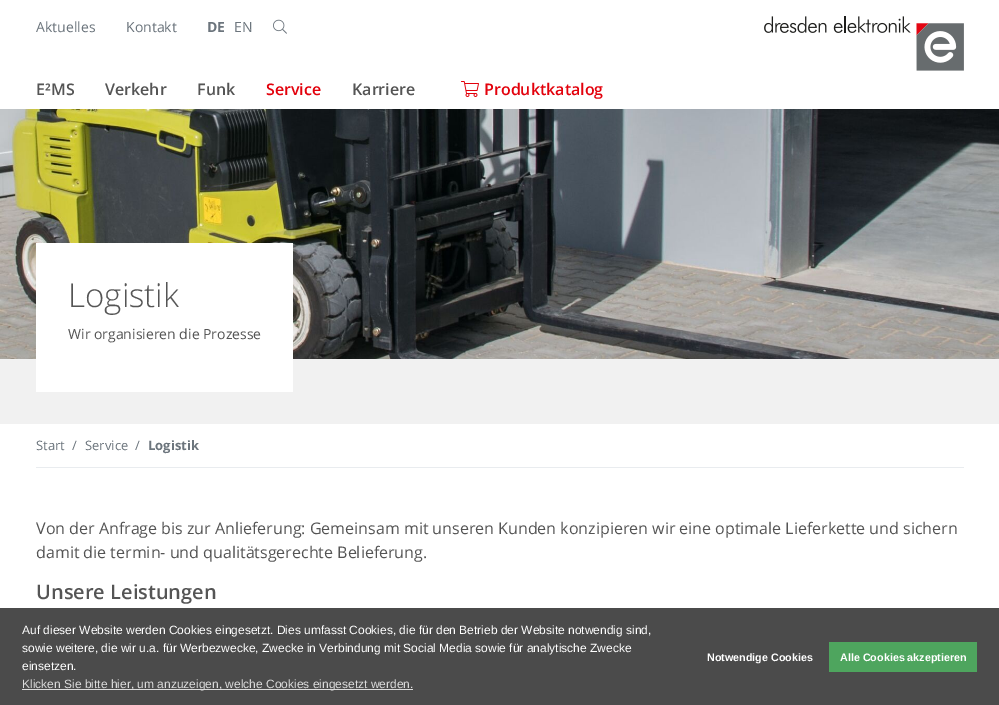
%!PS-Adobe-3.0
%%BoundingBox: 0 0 999 705
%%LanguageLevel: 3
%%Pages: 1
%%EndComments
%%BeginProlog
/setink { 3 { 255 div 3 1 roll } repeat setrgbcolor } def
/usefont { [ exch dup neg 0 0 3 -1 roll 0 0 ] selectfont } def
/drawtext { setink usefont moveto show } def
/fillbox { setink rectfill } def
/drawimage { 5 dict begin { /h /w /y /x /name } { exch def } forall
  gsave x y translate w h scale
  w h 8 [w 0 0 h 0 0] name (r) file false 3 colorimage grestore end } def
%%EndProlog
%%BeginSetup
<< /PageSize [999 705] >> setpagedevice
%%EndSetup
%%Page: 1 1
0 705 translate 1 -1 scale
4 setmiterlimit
0 0 999 705 255 255 255 fillbox
(Aktuelles) 36 32 /OpenSans-Regular 14 108 117 125 drawtext
(Kontakt) 126 32 /OpenSans-Regular 14 108 117 125 drawtext
(DE) 207 32 /OpenSans-Bold 14 108 117 125 drawtext
(EN) 234 32 /OpenSans-Regular 14 108 117 125 drawtext
(assets/img1.rgb) 273 19 14 15 drawimage
(assets/img2.rgb) 764 16 200 55 drawimage
(E²MS) 36 95 /OpenSans-SemiBold 16 85 85 85 drawtext
(Verkehr) 105 95 /OpenSans-SemiBold 16 85 85 85 drawtext
(Funk) 197 95 /OpenSans-SemiBold 16 85 85 85 drawtext
(Service) 266 95 /OpenSans-SemiBold 16 227 1 12 drawtext
(Karriere) 352 95 /OpenSans-SemiBold 16 85 85 85 drawtext
(assets/img3.rgb) 461 81 18 16 drawimage
(Produktkatalog) 484 95 /OpenSans-SemiBold 16 227 1 12 drawtext
0 359 999 65 241 241 241 fillbox
(assets/img4.rgb) 0 109 999 250 drawimage
36 243 257 149 255 255 255 fillbox
(Logistik) 68 307 /OpenSans-Light 33 85 85 85 drawtext
(Wir organisieren die Prozesse) 68 339 /OpenSans-Regular 14 85 85 85 drawtext
36 467 928 1 233 236 239 fillbox
(Start) 36 450 /OpenSans-Regular 13 108 117 125 drawtext
(/) 72 450 /OpenSans-Regular 13 108 117 125 drawtext
(Service) 85 450 /OpenSans-Regular 13 108 117 125 drawtext
(/) 135 450 /OpenSans-Regular 13 108 117 125 drawtext
(Logistik) 148 450 /OpenSans-Bold 13 108 117 125 drawtext
(Von der Anfrage bis zur Anlieferung: Gemeinsam mit unseren Kunden konzipieren wir eine optimale Lieferkette und sichern) 36 534 /OpenSans-Regular 16 85 85 85 drawtext
(damit die termin- und qualitätsgerechte Belieferung.) 36 558 /OpenSans-Regular 16 85 85 85 drawtext
(Unsere Leistungen) 36 599 /OpenSans-SemiBold 20 85 85 85 drawtext
0 608 999 97 75 75 75 fillbox
(Auf dieser Website werden Cookies eingesetzt. Dies umfasst Cookies, die für den Betrieb der Website notwendig sind,) 22 634 /LiberationSans-Regular 12 255 255 255 drawtext
(sowie weitere, die wir u.a. für Werbezwecke, Zwecke in Verbindung mit Social Media sowie für analytische Zwecke) 22 652 /LiberationSans-Regular 12 255 255 255 drawtext
(einsetzen.) 22 670 /LiberationSans-Regular 12 255 255 255 drawtext
22 689 391 1 219 219 219 fillbox
(Klicken Sie bitte hier, um anzuzeigen, welche Cookies eingesetzt werden.) 22 688 /LiberationSans-Regular 12 219 219 219 drawtext
(Notwendige Cookies) 707 661 /LiberationSans-Bold 10.75 255 255 255 drawtext
829 642 148 30 78 165 94 fillbox
(Alle Cookies akzeptieren) 840 661 /LiberationSans-Bold 10.75 255 255 255 drawtext
showpage
%%EOF
